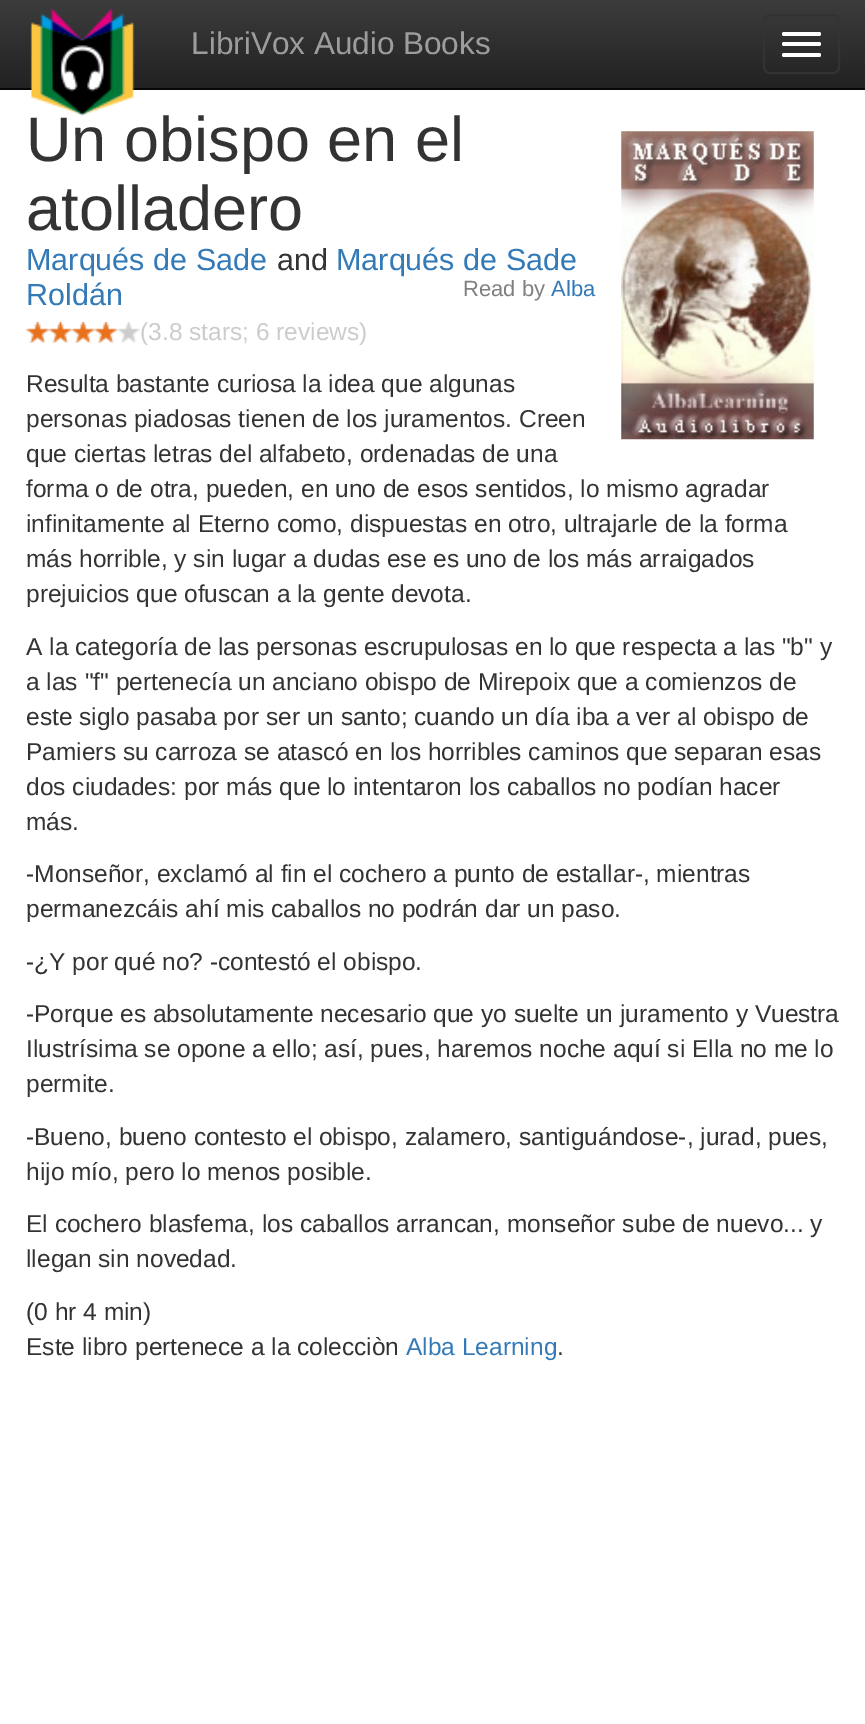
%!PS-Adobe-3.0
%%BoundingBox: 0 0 865 1724
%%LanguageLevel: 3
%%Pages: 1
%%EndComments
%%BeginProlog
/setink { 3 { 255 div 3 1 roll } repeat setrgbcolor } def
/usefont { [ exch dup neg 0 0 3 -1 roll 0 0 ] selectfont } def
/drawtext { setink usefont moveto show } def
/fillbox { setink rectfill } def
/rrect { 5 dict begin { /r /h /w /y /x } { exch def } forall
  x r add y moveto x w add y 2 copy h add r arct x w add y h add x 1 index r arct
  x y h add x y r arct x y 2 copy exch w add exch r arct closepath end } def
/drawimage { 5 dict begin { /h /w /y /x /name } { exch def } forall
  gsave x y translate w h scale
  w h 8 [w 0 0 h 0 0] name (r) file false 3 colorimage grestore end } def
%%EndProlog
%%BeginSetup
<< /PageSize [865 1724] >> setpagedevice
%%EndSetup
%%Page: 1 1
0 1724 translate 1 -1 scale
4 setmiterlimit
0 0 865 1724 255 255 255 fillbox
gsave 0 0 moveto 865 0 lineto 865 88 lineto 0 88 lineto closepath clip newpath
<< /ShadingType 2 /ColorSpace /DeviceRGB /Coords [433 0 433 88] /Extend [true true] /Function << /FunctionType 2 /Domain [0 1] /C0 [0.235 0.235 0.235] /C1 [0.133 0.133 0.133] /N 1 >> >> shfill grestore
0 88 865 2 8 8 8 fillbox
(Un obispo en el) 26 161 /LiberationSans-Regular 63 51 51 51 drawtext
(assets/img1.rgb) 30 8 105 108 drawimage
(LibriVox Audio Books) 191 54 /LiberationSans-Regular 31.5 157 157 157 drawtext
51 51 51 setink
2 setlinewidth
764 15 75 58 6 rrect stroke
255 255 255 setink
782 32 39 4 2 rrect fill
782 42 39 4 2 rrect fill
782 53 39 4 2 rrect fill
(assets/img2.rgb) 621 131 193 309 drawimage
(atolladero) 26 230 /LiberationSans-Regular 63 51 51 51 drawtext
(Marqués de Sade) 26 270 /LiberationSans-Regular 30.5 51 122 183 drawtext
(and) 277 270 /LiberationSans-Regular 30.5 51 51 51 drawtext
(Marqués de Sade) 336 270 /LiberationSans-Regular 30.5 51 122 183 drawtext
(Roldán) 26 305 /LiberationSans-Regular 30.5 51 122 183 drawtext
(Read by) 463 296 /LiberationSans-Regular 22 128 128 128 drawtext
(Alba) 551 296 /LiberationSans-Regular 22 51 122 183 drawtext
(assets/img3.rgb) 26 322 23 21 drawimage
(assets/img4.rgb) 49 322 23 21 drawimage
(assets/img5.rgb) 71 322 24 21 drawimage
(assets/img6.rgb) 94 322 24 21 drawimage
(assets/img7.rgb) 117 322 23 21 drawimage
(\(3.8 stars; 6 reviews\)) 140 340 /LiberationSans-Regular 24.5 204 204 204 drawtext
(Resulta bastante curiosa la idea que algunas) 26 392 /LiberationSans-Regular 24.5 51 51 51 drawtext
(personas piadosas tienen de los juramentos. Creen) 26 427 /LiberationSans-Regular 24.5 51 51 51 drawtext
(que ciertas letras del alfabeto, ordenadas de una) 26 462 /LiberationSans-Regular 24.5 51 51 51 drawtext
(forma o de otra, pueden, en uno de esos sentidos, lo mismo agradar) 26 497 /LiberationSans-Regular 24.5 51 51 51 drawtext
(infinitamente al Eterno como, dispuestas en otro, ultrajarle de la forma) 26 532 /LiberationSans-Regular 24.5 51 51 51 drawtext
(más horrible, y sin lugar a dudas ese es uno de los más arraigados) 26 567 /LiberationSans-Regular 24.5 51 51 51 drawtext
(prejuicios que ofuscan a la gente devota.) 26 602 /LiberationSans-Regular 24.5 51 51 51 drawtext
(A la categoría de las personas escrupulosas en lo que respecta a las "b" y) 26 655 /LiberationSans-Regular 24.5 51 51 51 drawtext
(a las "f" pertenecía un anciano obispo de Mirepoix que a comienzos de) 26 690 /LiberationSans-Regular 24.5 51 51 51 drawtext
(este siglo pasaba por ser un santo; cuando un día iba a ver al obispo de) 26 725 /LiberationSans-Regular 24.5 51 51 51 drawtext
(Pamiers su carroza se atascó en los horribles caminos que separan esas) 26 760 /LiberationSans-Regular 24.5 51 51 51 drawtext
(dos ciudades: por más que lo intentaron los caballos no podían hacer) 26 795 /LiberationSans-Regular 24.5 51 51 51 drawtext
(más.) 26 830 /LiberationSans-Regular 24.5 51 51 51 drawtext
(-Monseñor, exclamó al fin el cochero a punto de estallar-, mientras) 26 882 /LiberationSans-Regular 24.5 51 51 51 drawtext
(permanezcáis ahí mis caballos no podrán dar un paso.) 26 917 /LiberationSans-Regular 24.5 51 51 51 drawtext
(-¿Y por qué no? -contestó el obispo.) 26 970 /LiberationSans-Regular 24.5 51 51 51 drawtext
(-Porque es absolutamente necesario que yo suelte un juramento y Vuestra) 26 1022 /LiberationSans-Regular 24.5 51 51 51 drawtext
(Ilustrísima se opone a ello; así, pues, haremos noche aquí si Ella no me lo) 26 1057 /LiberationSans-Regular 24.5 51 51 51 drawtext
(permite.) 26 1092 /LiberationSans-Regular 24.5 51 51 51 drawtext
(-Bueno, bueno contesto el obispo, zalamero, santiguándose-, jurad, pues,) 26 1145 /LiberationSans-Regular 24.5 51 51 51 drawtext
(hijo mío, pero lo menos posible.) 26 1180 /LiberationSans-Regular 24.5 51 51 51 drawtext
(El cochero blasfema, los caballos arrancan, monseñor sube de nuevo... y) 26 1232 /LiberationSans-Regular 24.5 51 51 51 drawtext
(llegan sin novedad.) 26 1267 /LiberationSans-Regular 24.5 51 51 51 drawtext
(\(0 hr 4 min\)) 26 1320 /LiberationSans-Regular 24.5 51 51 51 drawtext
(Este libro pertenece a la colecciòn) 26 1355 /LiberationSans-Regular 24.5 51 51 51 drawtext
(Alba Learning) 406 1355 /LiberationSans-Regular 24.5 51 122 183 drawtext
(.) 557 1355 /LiberationSans-Regular 24.5 51 51 51 drawtext
showpage
%%EOF
